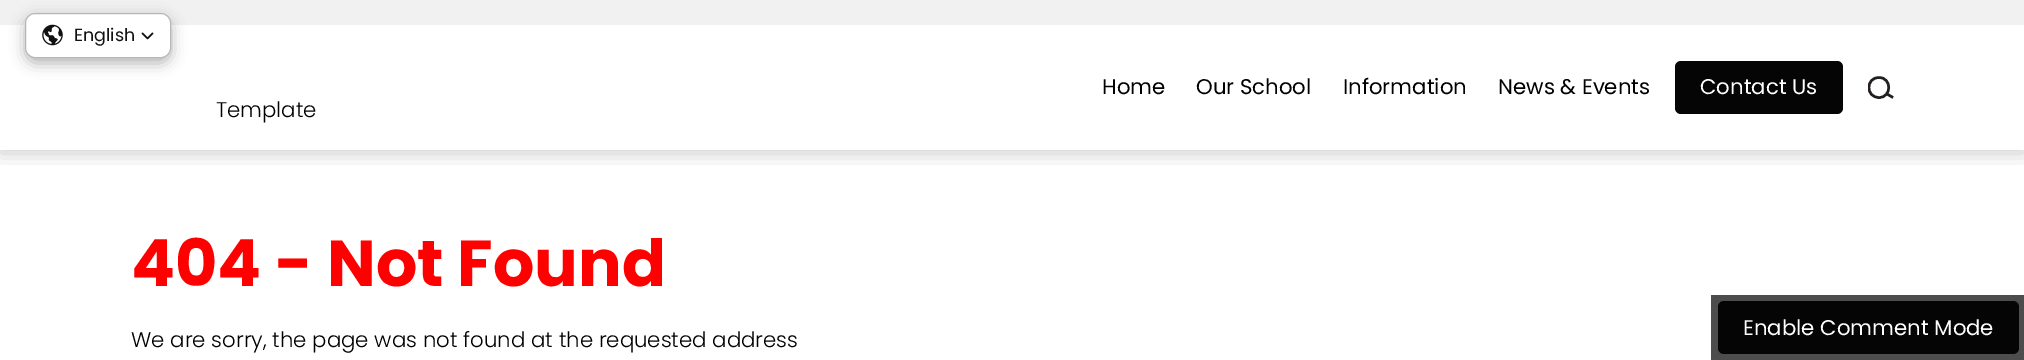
%!PS-Adobe-3.0
%%BoundingBox: 0 0 2024 360
%%LanguageLevel: 3
%%Pages: 1
%%EndComments
%%BeginProlog
/setink { 3 { 255 div 3 1 roll } repeat setrgbcolor } def
/usefont { [ exch dup neg 0 0 3 -1 roll 0 0 ] selectfont } def
/drawtext { setink usefont moveto show } def
/fillbox { setink rectfill } def
/setalpha { dup .setfillconstantalpha .setstrokeconstantalpha } def
/rrect { 5 dict begin { /r /h /w /y /x } { exch def } forall
  x r add y moveto x w add y 2 copy h add r arct x w add y h add x 1 index r arct
  x y h add x y r arct x y 2 copy exch w add exch r arct closepath end } def
/softshadow { 12 dict begin { /a /b /q /h /w /y /x } { exch def } forall gsave /was 0 def
  9 -2 -9 { dup b mul 4 div /e exch def 1 sub .425 mul 2.718 exch exp 1 add a .99 .min exch div /now exch def
    1 1 now sub 1 was sub div sub setalpha /was now def
    w h .min e 2 mul add 0 gt { x e sub y e sub w e 2 mul add h e 2 mul add
      q e add b .6 mul add w h .min 2 div e add .min 0 .max rrect fill } if } for grestore end } def
/drawimage { 5 dict begin { /h /w /y /x /name } { exch def } forall
  gsave x y translate w h scale
  w h 8 [w 0 0 h 0 0] name (r) file false 3 colorimage grestore end } def
%%EndProlog
%%BeginSetup
<< /PageSize [2024 360] /PageUsesTransparency true >> setpagedevice
%%EndSetup
%%Page: 1 1
0 .pushpdf14devicefilter
0 360 translate 1 -1 scale
4 setmiterlimit
0 0 2024 360 255 255 255 fillbox
gsave
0 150 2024 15 rectclip
0 0 0 setink
0 3 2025 150 0 9.5 0.2 softshadow
grestore
0 0 2024 25 241 241 241 fillbox
0 0 0 setink
25 18 146 45 10 7.5 0.3 softshadow
255 255 255 setink
25.5 13.5 145 44 9.5 rrect gsave fill grestore
183 183 183 setink
stroke
(assets/img1.rgb) 42 24 21 22 drawimage
(English) 74 41 /Poppins-Regular 17.5 17 17 17 drawtext
(assets/img2.rgb) 141 32 13 8 drawimage
(Home) 1102 94 /Poppins-Regular 21.25 0 0 0 drawtext
(Our School) 1196 94 /Poppins-Regular 21.25 0 0 0 drawtext
(Information) 1343 94 /Poppins-Regular 21.25 0 0 0 drawtext
(News & Events) 1498 94 /Poppins-Regular 21.25 0 0 0 drawtext
5 5 5 setink
1675 61 168 53 6 rrect fill
(Contact Us) 1700 94 /Poppins-Regular 21.25 255 255 255 drawtext
35 31 32 setink
2.5 setlinewidth
1 setlinejoin
1893 97.5 moveto 1887 94 lineto stroke
gsave
1868 76 26 23 rectclip
1 setlinecap
1879 97.5 moveto 1892 97.5 1892 77.5 1879 77.5 curveto 1865.5 77.5 1865.5 97.5 1879 97.5 curveto closepath stroke
grestore
(Template) 216 117 /Poppins-Light 21.25 0 0 0 drawtext
(404 - Not Found) 131 286 /Poppins-Bold 65 255 0 0 drawtext
(We are sorry, the page was not found at the requested address) 131 347 /Poppins-Light 21.25 0 0 0 drawtext
1711 295 313 65 77 77 77 fillbox
5 5 5 setink
1718 301 301 53 6 rrect fill
(Enable Comment Mode) 1743 335 /Poppins-Regular 21.25 255 255 255 drawtext
.poppdf14devicefilter showpage
%%EOF
